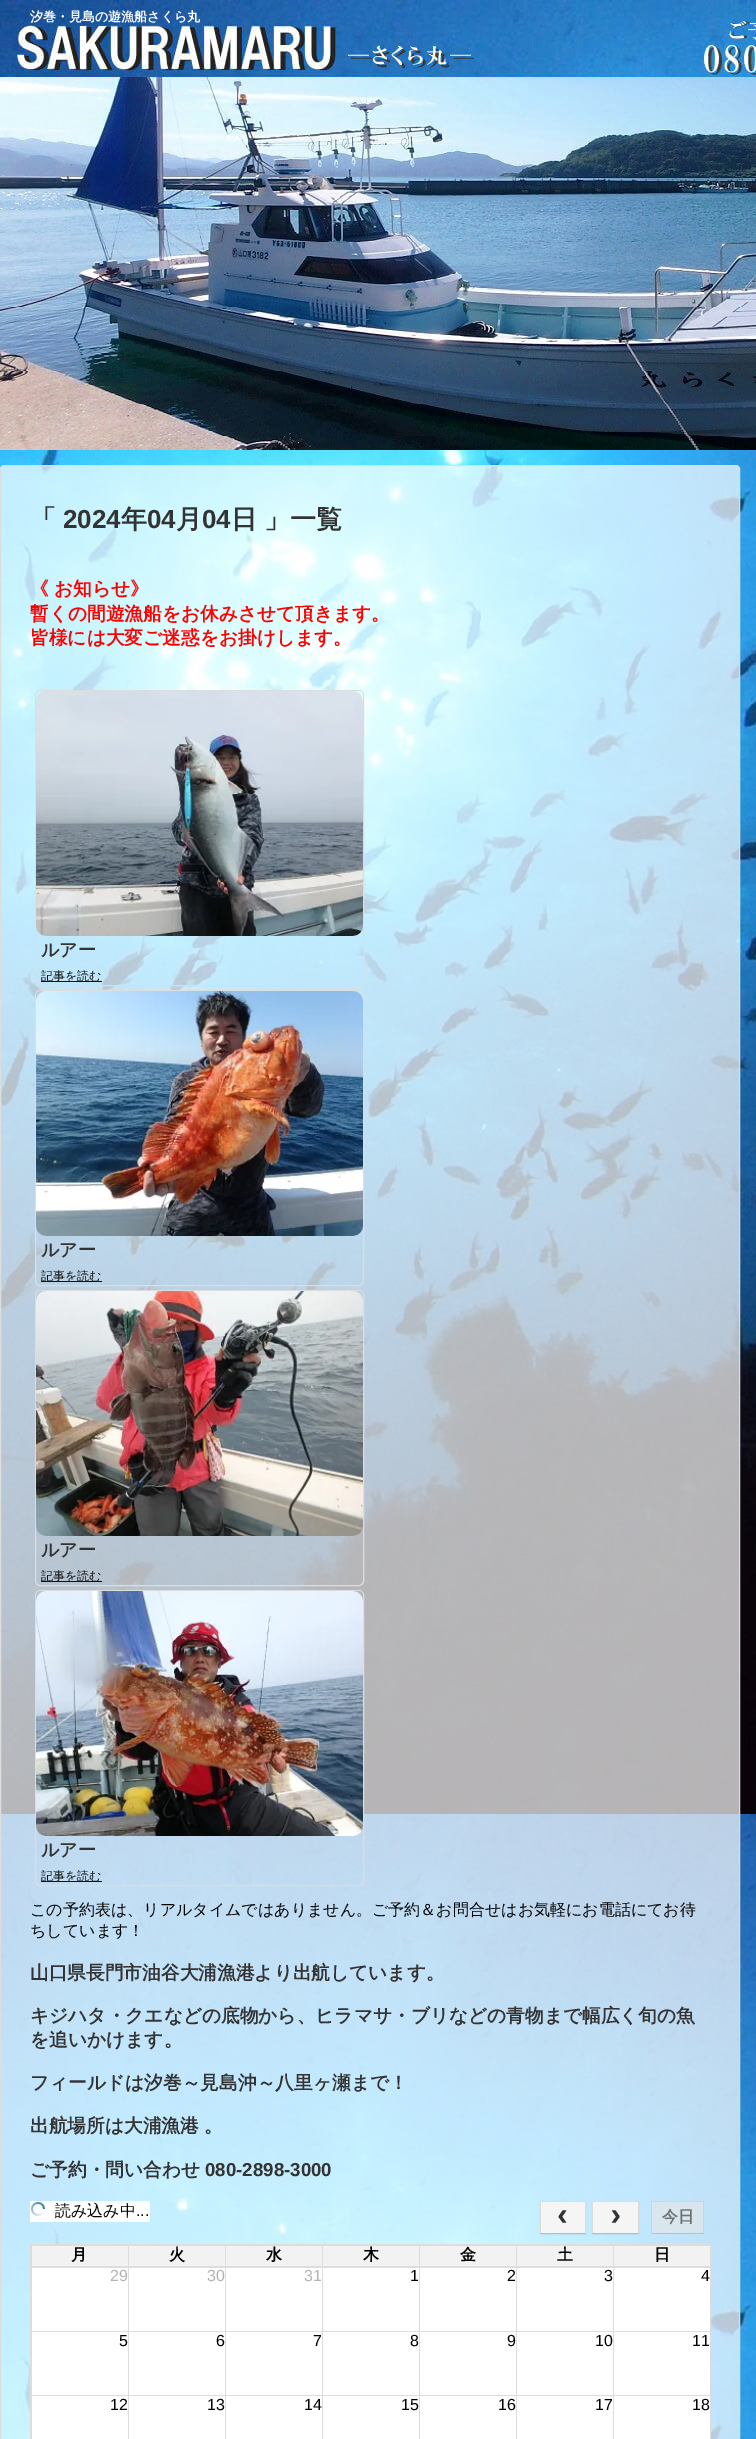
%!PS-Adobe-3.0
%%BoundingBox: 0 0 756 2439
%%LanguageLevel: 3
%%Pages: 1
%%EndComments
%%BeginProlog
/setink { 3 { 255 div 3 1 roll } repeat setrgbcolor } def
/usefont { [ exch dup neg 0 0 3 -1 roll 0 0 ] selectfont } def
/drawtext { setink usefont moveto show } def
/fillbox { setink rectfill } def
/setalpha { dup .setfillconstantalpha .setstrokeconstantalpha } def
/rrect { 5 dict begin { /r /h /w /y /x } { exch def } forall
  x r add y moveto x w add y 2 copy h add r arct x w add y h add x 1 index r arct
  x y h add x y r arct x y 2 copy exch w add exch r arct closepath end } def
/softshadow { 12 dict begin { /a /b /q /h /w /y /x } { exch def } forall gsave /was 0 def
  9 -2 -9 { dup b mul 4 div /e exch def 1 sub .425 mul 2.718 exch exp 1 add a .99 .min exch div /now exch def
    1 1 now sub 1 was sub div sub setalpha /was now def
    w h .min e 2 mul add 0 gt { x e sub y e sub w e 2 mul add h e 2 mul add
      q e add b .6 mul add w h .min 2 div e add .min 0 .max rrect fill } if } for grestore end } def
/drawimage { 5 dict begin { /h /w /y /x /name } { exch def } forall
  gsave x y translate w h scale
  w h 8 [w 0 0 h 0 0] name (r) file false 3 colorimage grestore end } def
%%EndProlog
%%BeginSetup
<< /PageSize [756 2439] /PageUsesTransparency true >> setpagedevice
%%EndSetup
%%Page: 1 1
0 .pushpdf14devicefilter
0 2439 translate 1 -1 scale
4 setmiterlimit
0 0 756 2439 255 255 255 fillbox
(assets/img1.rgb) 0 450 756 1989 drawimage
(assets/img2.rgb) 0 0 756 450 drawimage
(汐巻・見島の遊漁船さくら丸) 30 21 /WenQuanYiZenHei-Bold 13 255 255 255 drawtext
0.7 setalpha
0.5 465.5 739 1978 3.5 rrect fill
1 setalpha
221 221 221 setink
0.5 465.5 739 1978 3.5 rrect stroke
(「) 30 528 /WenQuanYiZenHei-Bold 26 51 51 51 drawtext
(2024) 63 528 /LiberationSans-Bold 26 51 51 51 drawtext
(年) 121 528 /WenQuanYiZenHei-Bold 26 51 51 51 drawtext
(04) 147 528 /LiberationSans-Bold 26 51 51 51 drawtext
(月) 176 528 /WenQuanYiZenHei-Bold 26 51 51 51 drawtext
(04) 202 528 /LiberationSans-Bold 26 51 51 51 drawtext
(日) 231 528 /WenQuanYiZenHei-Bold 26 51 51 51 drawtext
(」一覧) 264 528 /WenQuanYiZenHei-Bold 26 51 51 51 drawtext
(《 お知らせ》) 30 595 /WenQuanYiZenHei-Bold 18.7 255 0 0 drawtext
(暫くの間遊漁船をお休みさせて頂きます。) 30 620 /WenQuanYiZenHei-Bold 18.7 255 0 0 drawtext
(皆様には大変ご迷惑をお掛けします。) 30 644 /WenQuanYiZenHei-Bold 18.7 255 0 0 drawtext
221 221 221 setink
35.5 690.5 328 295 4.5 rrect stroke
(assets/img3.rgb) 36 691 327 245 drawimage
(ルアー) 41 956 /WenQuanYiZenHei-Bold 18 51 51 51 drawtext
41 981 61 1 17 17 17 fillbox
(記事を読む) 41 980 /WenQuanYiZenHei-Medium 12 17 17 17 drawtext
221 221 221 setink
35.5 990.5 328 295 4.5 rrect stroke
(assets/img4.rgb) 36 991 327 245 drawimage
(ルアー) 41 1256 /WenQuanYiZenHei-Bold 18 51 51 51 drawtext
41 1281 61 1 17 17 17 fillbox
(記事を読む) 41 1280 /WenQuanYiZenHei-Medium 12 17 17 17 drawtext
221 221 221 setink
35.5 1290.5 328 295 4.5 rrect stroke
(assets/img5.rgb) 36 1291 327 245 drawimage
(ルアー) 41 1556 /WenQuanYiZenHei-Bold 18 51 51 51 drawtext
41 1581 61 1 17 17 17 fillbox
(記事を読む) 41 1580 /WenQuanYiZenHei-Medium 12 17 17 17 drawtext
221 221 221 setink
35.5 1590.5 328 295 4.5 rrect stroke
(assets/img6.rgb) 36 1591 327 245 drawimage
(ルアー) 41 1856 /WenQuanYiZenHei-Bold 18 51 51 51 drawtext
41 1881 61 1 17 17 17 fillbox
(記事を読む) 41 1880 /WenQuanYiZenHei-Medium 12 17 17 17 drawtext
(この予約表は、リアルタイムではありません。ご予約＆お問合せはお気軽にお電話にてお待) 30 1915 /WenQuanYiZenHei-Medium 16 0 0 0 drawtext
(ちしています！) 30 1936 /WenQuanYiZenHei-Medium 16 0 0 0 drawtext
(山口県長門市油谷大浦漁港より出航しています。) 30 1979 /WenQuanYiZenHei-Bold 18.7 51 51 51 drawtext
(キジハタ・クエなどの底物から、ヒラマサ・ブリなどの青物まで幅広く旬の魚) 30 2022 /WenQuanYiZenHei-Bold 18.7 51 51 51 drawtext
(を追いかけます。) 30 2046 /WenQuanYiZenHei-Bold 18.7 51 51 51 drawtext
(フィールドは汐巻～見島沖～八里ヶ瀬まで！) 30 2089 /WenQuanYiZenHei-Bold 18.7 51 51 51 drawtext
(出航場所は大浦漁港 。) 30 2132 /WenQuanYiZenHei-Bold 18.7 51 51 51 drawtext
(ご予約・問い合わせ) 30 2176 /WenQuanYiZenHei-Bold 18.7 51 51 51 drawtext
(080-2898-3000) 205 2176 /LiberationSans-Bold 18.7 51 51 51 drawtext
30 2201 120 21 255 255 255 fillbox
(assets/img7.rgb) 31 2202 14 14 drawimage
(読み込み中) 55 2216 /WenQuanYiZenHei-Medium 16 0 0 0 drawtext
(...) 136 2216 /LiberationSans-Regular 16 0 0 0 drawtext
540 2202 46 33 0 1 0.05 softshadow
540 2201 46 33 245 245 245 fillbox
221 221 221 setink
540 2201 moveto 586 2201 lineto 585 2202 lineto 541 2202 lineto closepath fill
0.1 setalpha
0 0 0 setink
586 2201 moveto 586 2234 lineto 585 2233 lineto 585 2202 lineto closepath fill
0.25 setalpha
586 2234 moveto 540 2234 lineto 541 2233 lineto 585 2233 lineto closepath fill
0.1 setalpha
540 2234 moveto 540 2201 lineto 541 2202 lineto 541 2233 lineto closepath fill
1 setalpha
(‹) 553 2225 /LiberationMono-Bold 32 51 51 51 drawtext
0 0 0 setink
592 2202 47 33 0 1 0.05 softshadow
592 2201 47 33 245 245 245 fillbox
221 221 221 setink
592 2201 moveto 639 2201 lineto 638 2202 lineto 593 2202 lineto closepath fill
0.1 setalpha
0 0 0 setink
639 2201 moveto 639 2234 lineto 638 2233 lineto 638 2202 lineto closepath fill
0.25 setalpha
639 2234 moveto 592 2234 lineto 593 2233 lineto 638 2233 lineto closepath fill
0.1 setalpha
592 2234 moveto 592 2201 lineto 593 2202 lineto 593 2233 lineto closepath fill
1 setalpha
(›) 606 2225 /LiberationMono-Bold 32 51 51 51 drawtext
0.65 setalpha
651 2201 53 33 230 230 230 fillbox
1 setalpha
203 214 222 setink
651 2201 moveto 704 2201 lineto 703 2202 lineto 652 2202 lineto closepath fill
0.1 setalpha
67 79 87 setink
704 2201 moveto 704 2234 lineto 703 2233 lineto 703 2202 lineto closepath fill
0.16 setalpha
0 0 0 setink
704 2234 moveto 651 2234 lineto 652 2233 lineto 703 2233 lineto closepath fill
0.1 setalpha
68 81 89 setink
651 2234 moveto 651 2201 lineto 652 2202 lineto 652 2233 lineto closepath fill
1 setalpha
(今日) 662 2222 /WenQuanYiZenHei-Bold 16 109 113 116 drawtext
32 2246 678 20 242 242 242 fillbox
30 2244 681 1 221 221 221 fillbox
30 2266 681 1 221 221 221 fillbox
710 2266 1 173 221 221 221 fillbox
710 2244 1 23 221 221 221 fillbox
30 2266 1 173 221 221 221 fillbox
30 2244 1 23 221 221 221 fillbox
613 2245 98 1 221 221 221 fillbox
613 2245 1 22 221 221 221 fillbox
516 2245 98 1 221 221 221 fillbox
516 2245 1 22 221 221 221 fillbox
419 2245 98 1 221 221 221 fillbox
419 2245 1 22 221 221 221 fillbox
322 2245 98 1 221 221 221 fillbox
322 2245 1 22 221 221 221 fillbox
225 2245 98 1 221 221 221 fillbox
225 2245 1 22 221 221 221 fillbox
128 2245 98 1 221 221 221 fillbox
128 2245 1 22 221 221 221 fillbox
31 2245 98 1 221 221 221 fillbox
31 2245 1 22 221 221 221 fillbox
(月) 71 2260 /WenQuanYiZenHei-Bold 16 0 0 0 drawtext
(火) 169 2260 /WenQuanYiZenHei-Bold 16 0 0 0 drawtext
(水) 266 2260 /WenQuanYiZenHei-Bold 16 0 0 0 drawtext
(木) 363 2260 /WenQuanYiZenHei-Bold 16 0 0 0 drawtext
(金) 460 2260 /WenQuanYiZenHei-Bold 16 0 0 0 drawtext
(土) 557 2260 /WenQuanYiZenHei-Bold 16 0 0 0 drawtext
(日) 654 2260 /WenQuanYiZenHei-Bold 16 0 0 0 drawtext
32 2268 678 171 255 255 255 fillbox
613 2267 98 1 221 221 221 fillbox
613 2331 98 1 221 221 221 fillbox
613 2267 1 65 221 221 221 fillbox
516 2267 98 1 221 221 221 fillbox
516 2331 98 1 221 221 221 fillbox
516 2267 1 65 221 221 221 fillbox
419 2267 98 1 221 221 221 fillbox
419 2331 98 1 221 221 221 fillbox
419 2267 1 65 221 221 221 fillbox
322 2267 98 1 221 221 221 fillbox
322 2331 98 1 221 221 221 fillbox
322 2267 1 65 221 221 221 fillbox
225 2267 98 1 221 221 221 fillbox
225 2331 98 1 221 221 221 fillbox
225 2267 1 65 221 221 221 fillbox
128 2267 98 1 221 221 221 fillbox
128 2331 98 1 221 221 221 fillbox
128 2267 1 65 221 221 221 fillbox
31 2267 98 1 221 221 221 fillbox
31 2331 98 1 221 221 221 fillbox
31 2267 1 65 221 221 221 fillbox
(29) 110 2281 /LiberationSans-Regular 16 179 179 179 drawtext
(30) 207 2281 /LiberationSans-Regular 16 179 179 179 drawtext
(31) 304 2281 /LiberationSans-Regular 16 179 179 179 drawtext
(1) 410 2281 /LiberationSans-Regular 16 0 0 0 drawtext
(2) 507 2281 /LiberationSans-Regular 16 0 0 0 drawtext
(3) 604 2281 /LiberationSans-Regular 16 0 0 0 drawtext
(4) 701 2281 /LiberationSans-Regular 16 0 0 0 drawtext
613 2395 98 1 221 221 221 fillbox
613 2331 1 65 221 221 221 fillbox
516 2395 98 1 221 221 221 fillbox
516 2331 1 65 221 221 221 fillbox
419 2395 98 1 221 221 221 fillbox
419 2331 1 65 221 221 221 fillbox
322 2395 98 1 221 221 221 fillbox
322 2331 1 65 221 221 221 fillbox
225 2395 98 1 221 221 221 fillbox
225 2331 1 65 221 221 221 fillbox
128 2395 98 1 221 221 221 fillbox
128 2331 1 65 221 221 221 fillbox
31 2395 98 1 221 221 221 fillbox
31 2331 1 108 221 221 221 fillbox
(5) 119 2346 /LiberationSans-Regular 16 0 0 0 drawtext
(6) 216 2346 /LiberationSans-Regular 16 0 0 0 drawtext
(7) 313 2346 /LiberationSans-Regular 16 0 0 0 drawtext
(8) 410 2346 /LiberationSans-Regular 16 0 0 0 drawtext
(9) 507 2346 /LiberationSans-Regular 16 0 0 0 drawtext
(10) 595 2346 /LiberationSans-Regular 16 0 0 0 drawtext
(11) 692 2346 /LiberationSans-Regular 16 0 0 0 drawtext
128 2395 1 44 221 221 221 fillbox
225 2395 1 44 221 221 221 fillbox
322 2395 1 44 221 221 221 fillbox
419 2395 1 44 221 221 221 fillbox
516 2395 1 44 221 221 221 fillbox
613 2395 1 44 221 221 221 fillbox
(12) 110 2410 /LiberationSans-Regular 16 0 0 0 drawtext
(13) 207 2410 /LiberationSans-Regular 16 0 0 0 drawtext
(14) 304 2410 /LiberationSans-Regular 16 0 0 0 drawtext
(15) 401 2410 /LiberationSans-Regular 16 0 0 0 drawtext
(16) 498 2410 /LiberationSans-Regular 16 0 0 0 drawtext
(17) 595 2410 /LiberationSans-Regular 16 0 0 0 drawtext
(18) 692 2410 /LiberationSans-Regular 16 0 0 0 drawtext
.poppdf14devicefilter showpage
%%EOF
